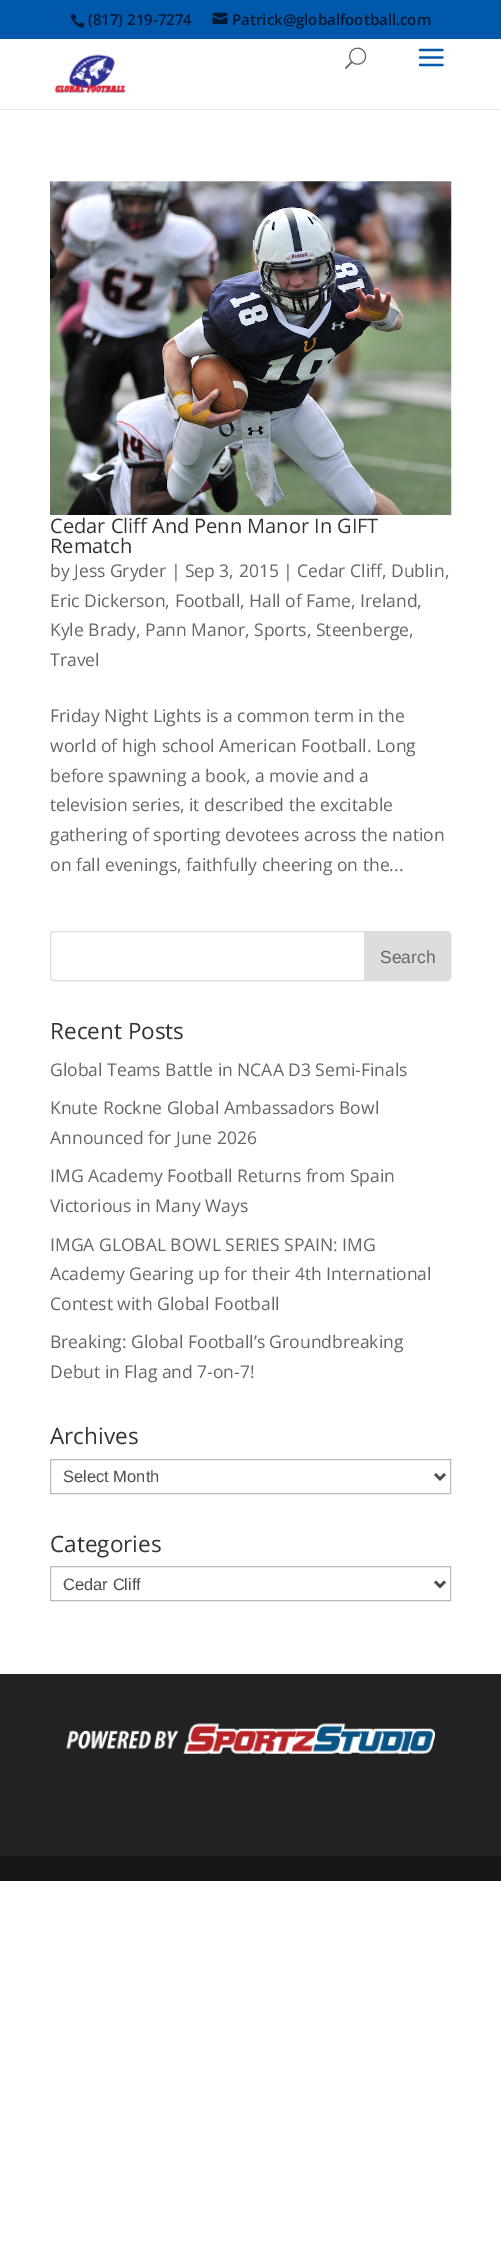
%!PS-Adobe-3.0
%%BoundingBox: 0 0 501 2249
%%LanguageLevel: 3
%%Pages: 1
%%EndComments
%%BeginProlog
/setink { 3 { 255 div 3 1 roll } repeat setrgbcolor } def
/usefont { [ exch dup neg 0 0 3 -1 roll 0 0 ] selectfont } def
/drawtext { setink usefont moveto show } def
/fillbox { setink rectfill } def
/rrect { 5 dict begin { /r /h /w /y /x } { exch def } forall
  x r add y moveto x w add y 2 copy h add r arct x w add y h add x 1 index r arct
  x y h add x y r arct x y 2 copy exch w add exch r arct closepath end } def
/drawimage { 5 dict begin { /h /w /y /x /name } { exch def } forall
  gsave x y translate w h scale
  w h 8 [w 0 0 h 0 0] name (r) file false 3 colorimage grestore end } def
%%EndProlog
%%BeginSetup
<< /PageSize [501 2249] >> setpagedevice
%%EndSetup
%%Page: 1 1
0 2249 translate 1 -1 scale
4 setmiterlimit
0 0 501 2249 255 255 255 fillbox
0 0 501 39 0 88 171 fillbox
(assets/img1.rgb) 70 14 15 14 drawimage
(\(817\) 219-7274) 88 25 /OpenSans-SemiBold 15 0 26 51 drawtext
(assets/img2.rgb) 212 12 16 13 drawimage
(Patrick@globalfootball.com) 232 25 /OpenSans-SemiBold 15 0 26 51 drawtext
0 109 501 1 230 230 230 fillbox
(assets/img3.rgb) 54 54 72 39 drawimage
(assets/img4.rgb) 345 47 22 22 drawimage
(assets/img5.rgb) 418 48 26 19 drawimage
(assets/img6.rgb) 50 181 402 334 drawimage
(Cedar Cliff And Penn Manor In GIFT) 50 533 /OpenSans-Regular 20 51 51 51 drawtext
(Rematch) 50 553 /OpenSans-Regular 20 51 51 51 drawtext
(by Jess Gryder | Sep 3, 2015 | Cedar Cliff, Dublin,) 50 577 /OpenSans-Regular 17.5 102 102 102 drawtext
(Eric Dickerson, Football, Hall of Fame, Ireland,) 50 607 /OpenSans-Regular 17.5 102 102 102 drawtext
(Kyle Brady, Pann Manor, Sports, Steenberge,) 50 636 /OpenSans-Regular 17.5 102 102 102 drawtext
(Travel) 50 666 /OpenSans-Regular 17.5 102 102 102 drawtext
(Friday Night Lights is a common term in the) 50 722 /OpenSans-Regular 17.5 102 102 102 drawtext
(world of high school American Football. Long) 50 752 /OpenSans-Regular 17.5 102 102 102 drawtext
(before spawning a book, a movie and a) 50 782 /OpenSans-Regular 17.5 102 102 102 drawtext
(television series, it described the excitable) 50 811 /OpenSans-Regular 17.5 102 102 102 drawtext
(gathering of sporting devotees across the nation) 50 841 /OpenSans-Regular 17.5 102 102 102 drawtext
(on fall evenings, faithfully cheering on the...) 50 871 /OpenSans-Regular 17.5 102 102 102 drawtext
221 221 221 setink
50.5 931.5 400 49 3.5 rrect stroke
364.5 931.5 moveto 447 931.5 lineto 449 931.5 450.5 933 450.5 935 curveto 450.5 977 lineto 450.5 979 449 980.5 447 980.5 curveto 364.5 980.5 lineto closepath gsave fill grestore
stroke
(Search) 380 963 /LiberationSans-Regular 17.5 102 102 102 drawtext
(Recent Posts) 50 1039 /OpenSans-Regular 22.5 51 51 51 drawtext
(Global Teams Battle in NCAA D3 Semi-Finals) 50 1076 /OpenSans-Regular 17.5 102 102 102 drawtext
(Knute Rockne Global Ambassadors Bowl) 50 1114 /OpenSans-Regular 17.5 102 102 102 drawtext
(Announced for June 2026) 50 1144 /OpenSans-Regular 17.5 102 102 102 drawtext
(IMG Academy Football Returns from Spain) 50 1182 /OpenSans-Regular 17.5 102 102 102 drawtext
(Victorious in Many Ways) 50 1212 /OpenSans-Regular 17.5 102 102 102 drawtext
(IMGA GLOBAL BOWL SERIES SPAIN: IMG) 50 1251 /OpenSans-Regular 17.5 102 102 102 drawtext
(Academy Gearing up for their 4th International) 50 1280 /OpenSans-Regular 17.5 102 102 102 drawtext
(Contest with Global Football) 50 1310 /OpenSans-Regular 17.5 102 102 102 drawtext
(Breaking: Global Football’s Groundbreaking) 50 1348 /OpenSans-Regular 17.5 102 102 102 drawtext
(Debut in Flag and 7-on-7!) 50 1378 /OpenSans-Regular 17.5 102 102 102 drawtext
(Archives) 50 1444 /OpenSans-Regular 22.5 51 51 51 drawtext
187 187 187 setink
50.5 1459.5 400 34 rectstroke
78 78 78 setink
2.5 setlinewidth
435 1474 moveto 440 1479 lineto 445 1474 lineto stroke
(Select Month) 63 1482 /LiberationSans-Regular 16.5 78 78 78 drawtext
(Categories) 50 1552 /OpenSans-Regular 22.5 51 51 51 drawtext
187 187 187 setink
1 setlinewidth
50.5 1566.5 400 34 rectstroke
78 78 78 setink
2.5 setlinewidth
435 1581.5 moveto 440 1586.5 lineto 445 1581.5 lineto stroke
(Cedar Cliff) 63 1590 /LiberationSans-Regular 16.5 78 78 78 drawtext
0 1674 501 182 34 34 34 fillbox
(assets/img7.rgb) 66 1723 369 31 drawimage
0 1856 501 25 23 23 23 fillbox
showpage
%%EOF
